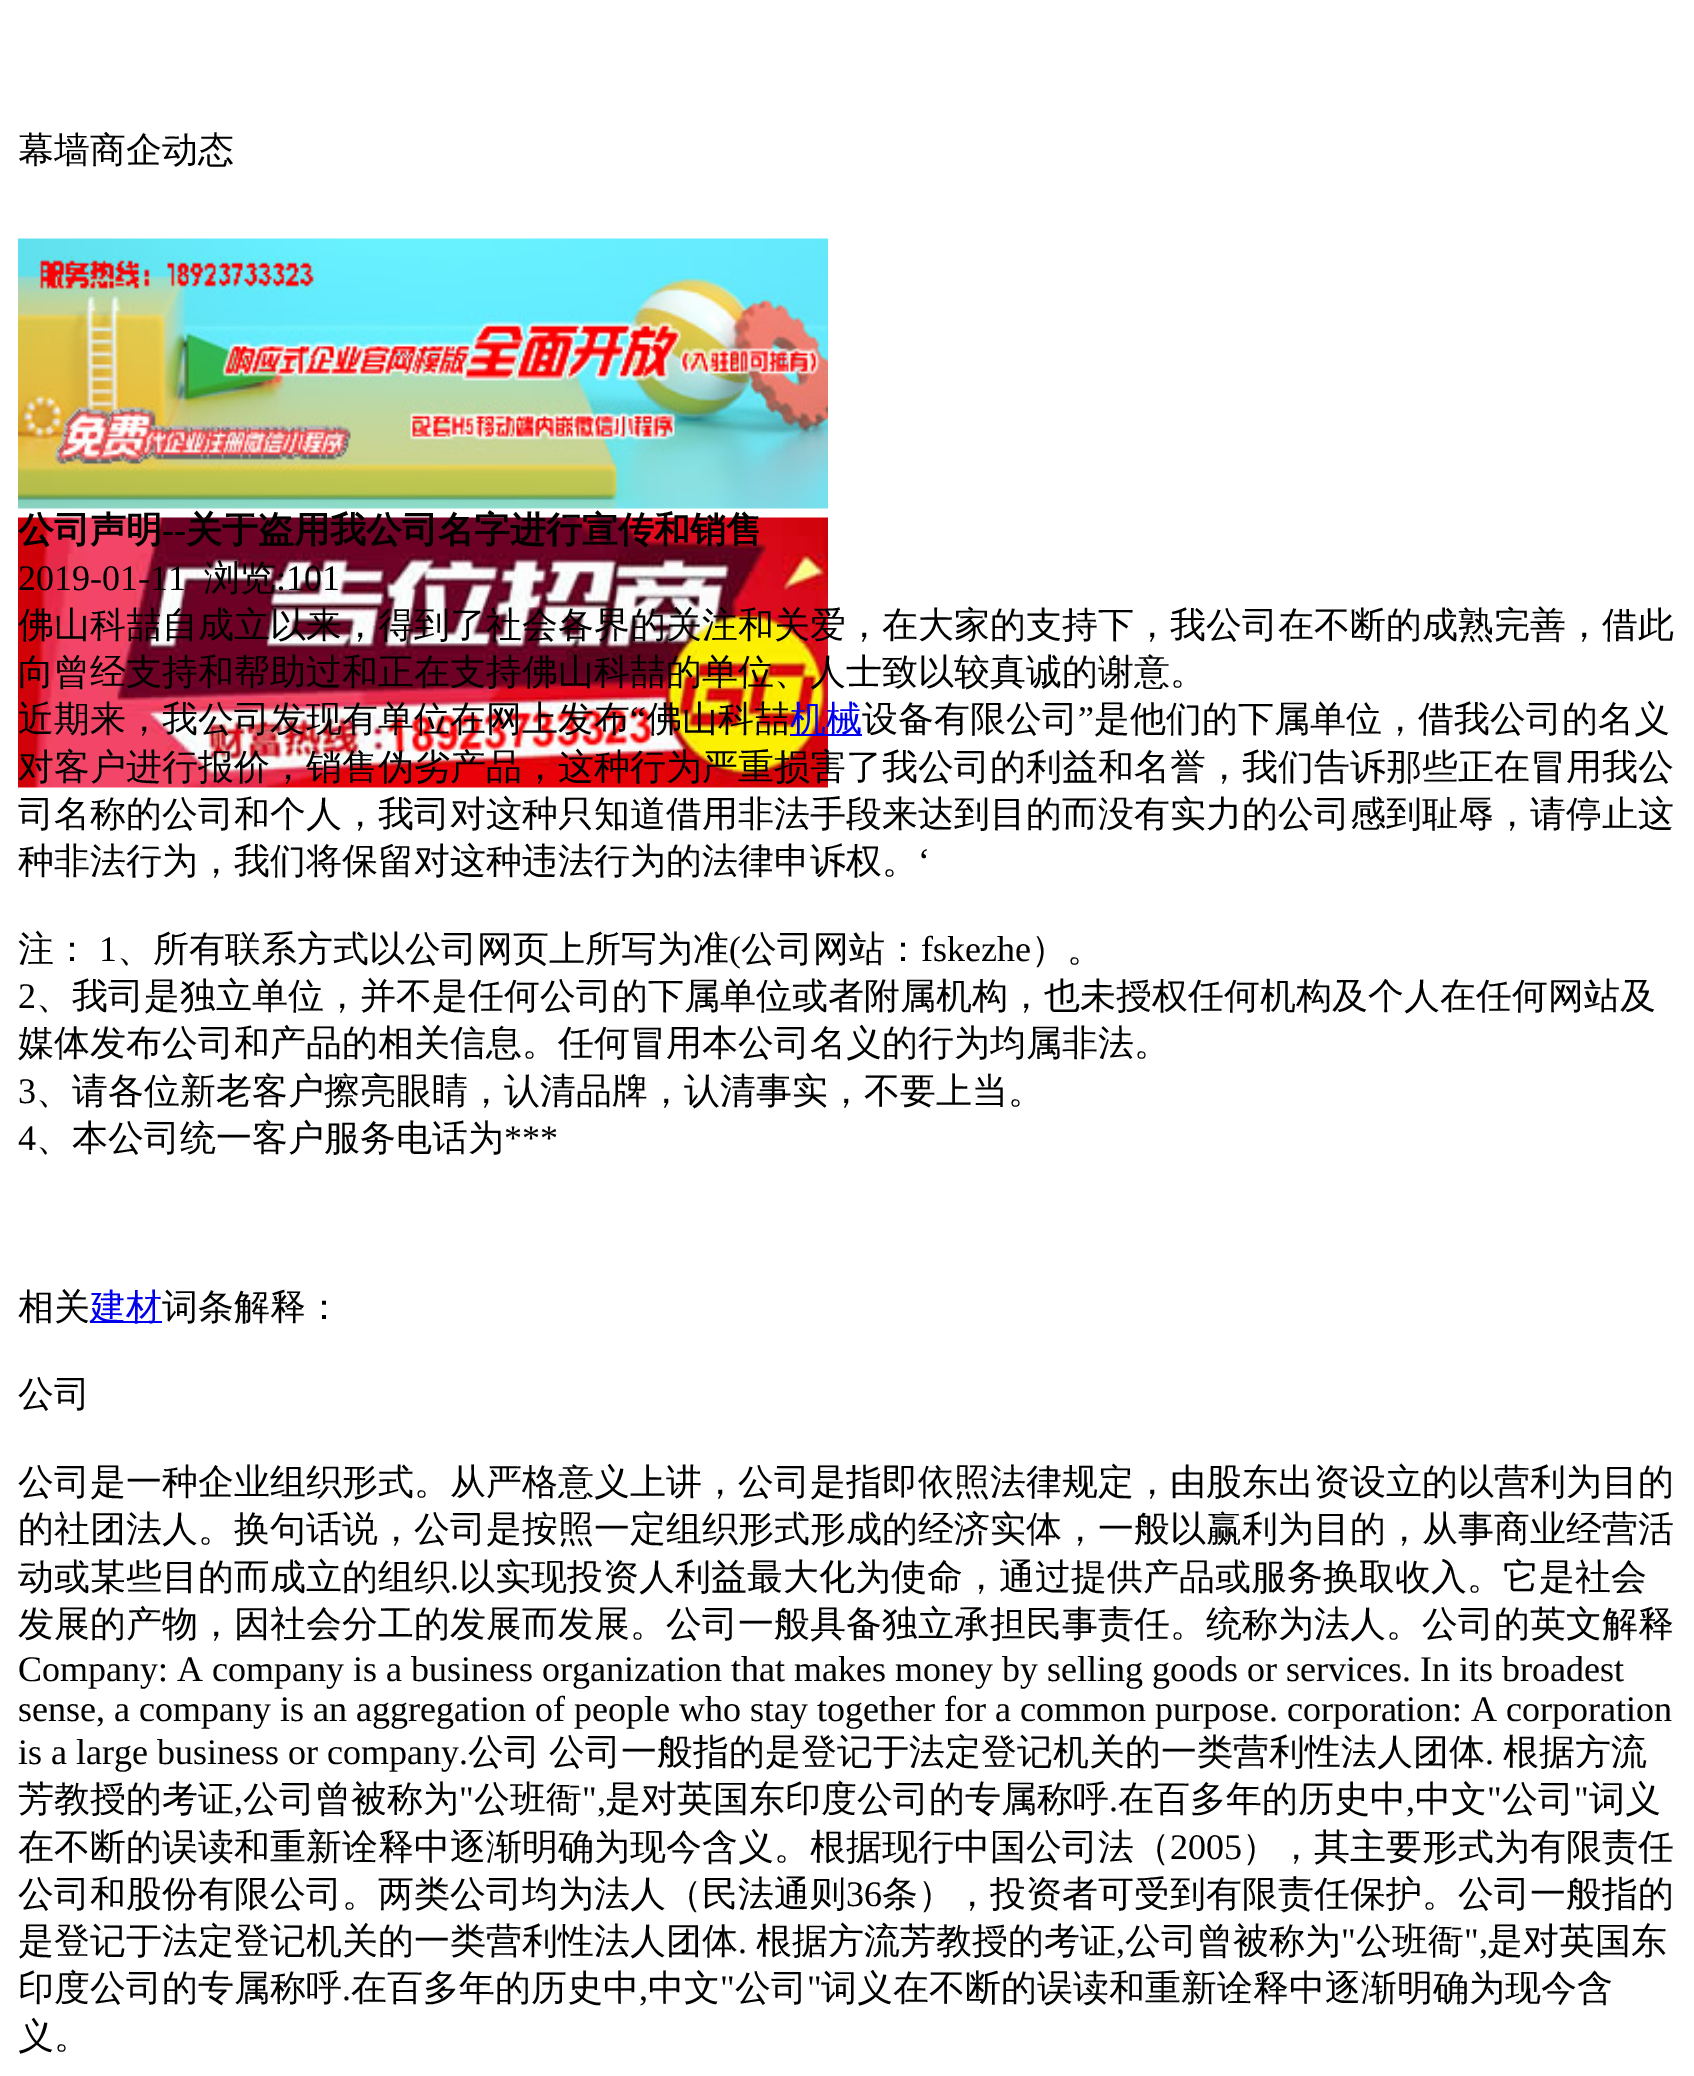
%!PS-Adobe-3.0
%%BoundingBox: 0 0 1694 2076
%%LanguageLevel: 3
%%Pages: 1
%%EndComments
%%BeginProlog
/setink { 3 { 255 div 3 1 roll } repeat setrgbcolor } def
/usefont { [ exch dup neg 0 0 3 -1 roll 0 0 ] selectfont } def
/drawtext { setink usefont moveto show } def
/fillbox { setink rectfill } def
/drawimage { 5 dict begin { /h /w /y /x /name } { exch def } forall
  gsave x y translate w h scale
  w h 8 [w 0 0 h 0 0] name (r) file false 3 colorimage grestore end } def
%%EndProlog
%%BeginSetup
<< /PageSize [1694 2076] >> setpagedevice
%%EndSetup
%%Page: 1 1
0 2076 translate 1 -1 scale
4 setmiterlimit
0 0 1694 2076 255 255 255 fillbox
(幕墙商企动态) 18 162 /WenQuanYiZenHei-Medium 36 0 0 0 drawtext
(assets/img1.rgb) 18 238 810 271 drawimage
(assets/img2.rgb) 18 517 810 271 drawimage
(公司声明) 18 542 /WenQuanYiZenHei-Bold 36 0 0 0 drawtext
(--) 162 542 /LiberationSerif-Bold 36 0 0 0 drawtext
(关于盗用我公司名字进行宣传和销售) 186 542 /WenQuanYiZenHei-Bold 36 0 0 0 drawtext
(2019-01-11) 18 590 /LiberationSerif-Regular 36 0 0 0 drawtext
(浏览) 204 590 /WenQuanYiZenHei-Medium 36 0 0 0 drawtext
(:101) 276 590 /LiberationSerif-Regular 36 0 0 0 drawtext
(佛山科喆自成立以来，得到了社会各界的关注和关爱，在大家的支持下，我公司在不断的成熟完善，借此) 18 637 /WenQuanYiZenHei-Medium 36 0 0 0 drawtext
(向曾经支持和帮助过和正在支持佛山科喆的单位、人士致以较真诚的谢意。) 18 684 /WenQuanYiZenHei-Medium 36 0 0 0 drawtext
(近期来，我公司发现有单位在网上发布) 18 731 /WenQuanYiZenHei-Medium 36 0 0 0 drawtext
(“) 630 731 /LiberationSerif-Regular 36 0 0 0 drawtext
(佛山科喆) 646 731 /WenQuanYiZenHei-Medium 36 0 0 0 drawtext
790 734 72 2 0 0 238 fillbox
(机械) 790 731 /WenQuanYiZenHei-Medium 36 0 0 238 drawtext
(设备有限公司) 862 731 /WenQuanYiZenHei-Medium 36 0 0 0 drawtext
(”) 1078 731 /LiberationSerif-Regular 36 0 0 0 drawtext
(是他们的下属单位，借我公司的名义) 1094 731 /WenQuanYiZenHei-Medium 36 0 0 0 drawtext
(对客户进行报价，销售伪劣产品，这种行为严重损害了我公司的利益和名誉，我们告诉那些正在冒用我公) 18 779 /WenQuanYiZenHei-Medium 36 0 0 0 drawtext
(司名称的公司和个人，我司对这种只知道借用非法手段来达到目的而没有实力的公司感到耻辱，请停止这) 18 826 /WenQuanYiZenHei-Medium 36 0 0 0 drawtext
(种非法行为，我们将保留对这种违法行为的法律申诉权。) 18 873 /WenQuanYiZenHei-Medium 36 0 0 0 drawtext
(‘) 918 873 /LiberationSerif-Regular 36 0 0 0 drawtext
(注：) 18 961 /WenQuanYiZenHei-Medium 36 0 0 0 drawtext
(1) 99 961 /LiberationSerif-Regular 36 0 0 0 drawtext
(、所有联系方式以公司网页上所写为准) 117 961 /WenQuanYiZenHei-Medium 36 0 0 0 drawtext
(\() 729 961 /LiberationSerif-Regular 36 0 0 0 drawtext
(公司网站：) 741 961 /WenQuanYiZenHei-Medium 36 0 0 0 drawtext
(fskezhe) 921 961 /LiberationSerif-Regular 36 0 0 0 drawtext
(）。) 1031 961 /WenQuanYiZenHei-Medium 36 0 0 0 drawtext
(2) 18 1008 /LiberationSerif-Regular 36 0 0 0 drawtext
(、我司是独立单位，并不是任何公司的下属单位或者附属机构，也未授权任何机构及个人在任何网站及) 36 1008 /WenQuanYiZenHei-Medium 36 0 0 0 drawtext
(媒体发布公司和产品的相关信息。任何冒用本公司名义的行为均属非法。) 18 1055 /WenQuanYiZenHei-Medium 36 0 0 0 drawtext
(3) 18 1103 /LiberationSerif-Regular 36 0 0 0 drawtext
(、请各位新老客户擦亮眼睛，认清品牌，认清事实，不要上当。) 36 1103 /WenQuanYiZenHei-Medium 36 0 0 0 drawtext
(4) 18 1150 /LiberationSerif-Regular 36 0 0 0 drawtext
(、本公司统一客户服务电话为) 36 1150 /WenQuanYiZenHei-Medium 36 0 0 0 drawtext
(***) 504 1150 /LiberationSerif-Regular 36 0 0 0 drawtext
(相关) 18 1319 /WenQuanYiZenHei-Medium 36 0 0 0 drawtext
90 1321 72 2 0 0 238 fillbox
(建材) 90 1319 /WenQuanYiZenHei-Medium 36 0 0 238 drawtext
(词条解释：) 162 1319 /WenQuanYiZenHei-Medium 36 0 0 0 drawtext
(公司) 18 1406 /WenQuanYiZenHei-Medium 36 0 0 0 drawtext
(公司是一种企业组织形式。从严格意义上讲，公司是指即依照法律规定，由股东出资设立的以营利为目的) 18 1494 /WenQuanYiZenHei-Medium 36 0 0 0 drawtext
(的社团法人。换句话说，公司是按照一定组织形式形成的经济实体，一般以赢利为目的，从事商业经营活) 18 1541 /WenQuanYiZenHei-Medium 36 0 0 0 drawtext
(动或某些目的而成立的组织) 18 1589 /WenQuanYiZenHei-Medium 36 0 0 0 drawtext
(.) 450 1589 /LiberationSerif-Regular 36 0 0 0 drawtext
(以实现投资人利益最大化为使命，通过提供产品或服务换取收入。它是社会) 459 1589 /WenQuanYiZenHei-Medium 36 0 0 0 drawtext
(发展的产物，因社会分工的发展而发展。公司一般具备独立承担民事责任。统称为法人。公司的英文解释) 18 1636 /WenQuanYiZenHei-Medium 36 0 0 0 drawtext
(Company: A company is a business organization that makes money by selling goods or services. In its broadest) 18 1681 /LiberationSerif-Regular 36 0 0 0 drawtext
(sense, a company is an aggregation of people who stay together for a common purpose. corporation: A corporation) 18 1721 /LiberationSerif-Regular 36 0 0 0 drawtext
(is a large business or company.) 18 1764 /LiberationSerif-Regular 36 0 0 0 drawtext
(公司) 468 1764 /WenQuanYiZenHei-Medium 36 0 0 0 drawtext
(公司一般指的是登记于法定登记机关的一类营利性法人团体) 549 1764 /WenQuanYiZenHei-Medium 36 0 0 0 drawtext
(.) 1485 1764 /LiberationSerif-Regular 36 0 0 0 drawtext
(根据方流) 1503 1764 /WenQuanYiZenHei-Medium 36 0 0 0 drawtext
(芳教授的考证) 18 1811 /WenQuanYiZenHei-Medium 36 0 0 0 drawtext
(公司曾被称为) 243 1811 /WenQuanYiZenHei-Medium 36 0 0 0 drawtext
(") 459 1811 /LiberationSerif-Regular 36 0 0 0 drawtext
(公班衙) 474 1811 /WenQuanYiZenHei-Medium 36 0 0 0 drawtext
(",) 582 1811 /LiberationSerif-Regular 36 0 0 0 drawtext
(是对英国东印度公司的专属称呼) 605 1811 /WenQuanYiZenHei-Medium 36 0 0 0 drawtext
(在百多年的历史中) 1118 1811 /WenQuanYiZenHei-Medium 36 0 0 0 drawtext
(中文) 1415 1811 /WenQuanYiZenHei-Medium 36 0 0 0 drawtext
(") 1487 1811 /LiberationSerif-Regular 36 0 0 0 drawtext
(公司) 1502 1811 /WenQuanYiZenHei-Medium 36 0 0 0 drawtext
(") 1574 1811 /LiberationSerif-Regular 36 0 0 0 drawtext
(词义) 1589 1811 /WenQuanYiZenHei-Medium 36 0 0 0 drawtext
(,) 234 1811 /LiberationSerif-Regular 36 0 0 0 drawtext
(.) 1109 1811 /LiberationSerif-Regular 36 0 0 0 drawtext
(,) 1406 1811 /LiberationSerif-Regular 36 0 0 0 drawtext
(在不断的误读和重新诠释中逐渐明确为现今含义。根据现行中国公司法（) 18 1859 /WenQuanYiZenHei-Medium 36 0 0 0 drawtext
(2005) 1170 1859 /LiberationSerif-Regular 36 0 0 0 drawtext
(），其主要形式为有限责任) 1242 1859 /WenQuanYiZenHei-Medium 36 0 0 0 drawtext
(公司和股份有限公司。两类公司均为法人（民法通则) 18 1906 /WenQuanYiZenHei-Medium 36 0 0 0 drawtext
(36) 846 1906 /LiberationSerif-Regular 36 0 0 0 drawtext
(条），投资者可受到有限责任保护。公司一般指的) 882 1906 /WenQuanYiZenHei-Medium 36 0 0 0 drawtext
(是登记于法定登记机关的一类营利性法人团体) 18 1953 /WenQuanYiZenHei-Medium 36 0 0 0 drawtext
(.) 738 1953 /LiberationSerif-Regular 36 0 0 0 drawtext
(根据方流芳教授的考证) 756 1953 /WenQuanYiZenHei-Medium 36 0 0 0 drawtext
(,) 1116 1953 /LiberationSerif-Regular 36 0 0 0 drawtext
(公司曾被称为) 1125 1953 /WenQuanYiZenHei-Medium 36 0 0 0 drawtext
(") 1341 1953 /LiberationSerif-Regular 36 0 0 0 drawtext
(公班衙) 1356 1953 /WenQuanYiZenHei-Medium 36 0 0 0 drawtext
(",) 1464 1953 /LiberationSerif-Regular 36 0 0 0 drawtext
(是对英国东) 1487 1953 /WenQuanYiZenHei-Medium 36 0 0 0 drawtext
(印度公司的专属称呼) 18 2000 /WenQuanYiZenHei-Medium 36 0 0 0 drawtext
(在百多年的历史中) 351 2000 /WenQuanYiZenHei-Medium 36 0 0 0 drawtext
(中文) 648 2000 /WenQuanYiZenHei-Medium 36 0 0 0 drawtext
(") 720 2000 /LiberationSerif-Regular 36 0 0 0 drawtext
(公司) 735 2000 /WenQuanYiZenHei-Medium 36 0 0 0 drawtext
(") 807 2000 /LiberationSerif-Regular 36 0 0 0 drawtext
(词义在不断的误读和重新诠释中逐渐明确为现今含) 821 2000 /WenQuanYiZenHei-Medium 36 0 0 0 drawtext
(.) 342 2000 /LiberationSerif-Regular 36 0 0 0 drawtext
(,) 639 2000 /LiberationSerif-Regular 36 0 0 0 drawtext
(义。) 18 2048 /WenQuanYiZenHei-Medium 36 0 0 0 drawtext
showpage
%%EOF
